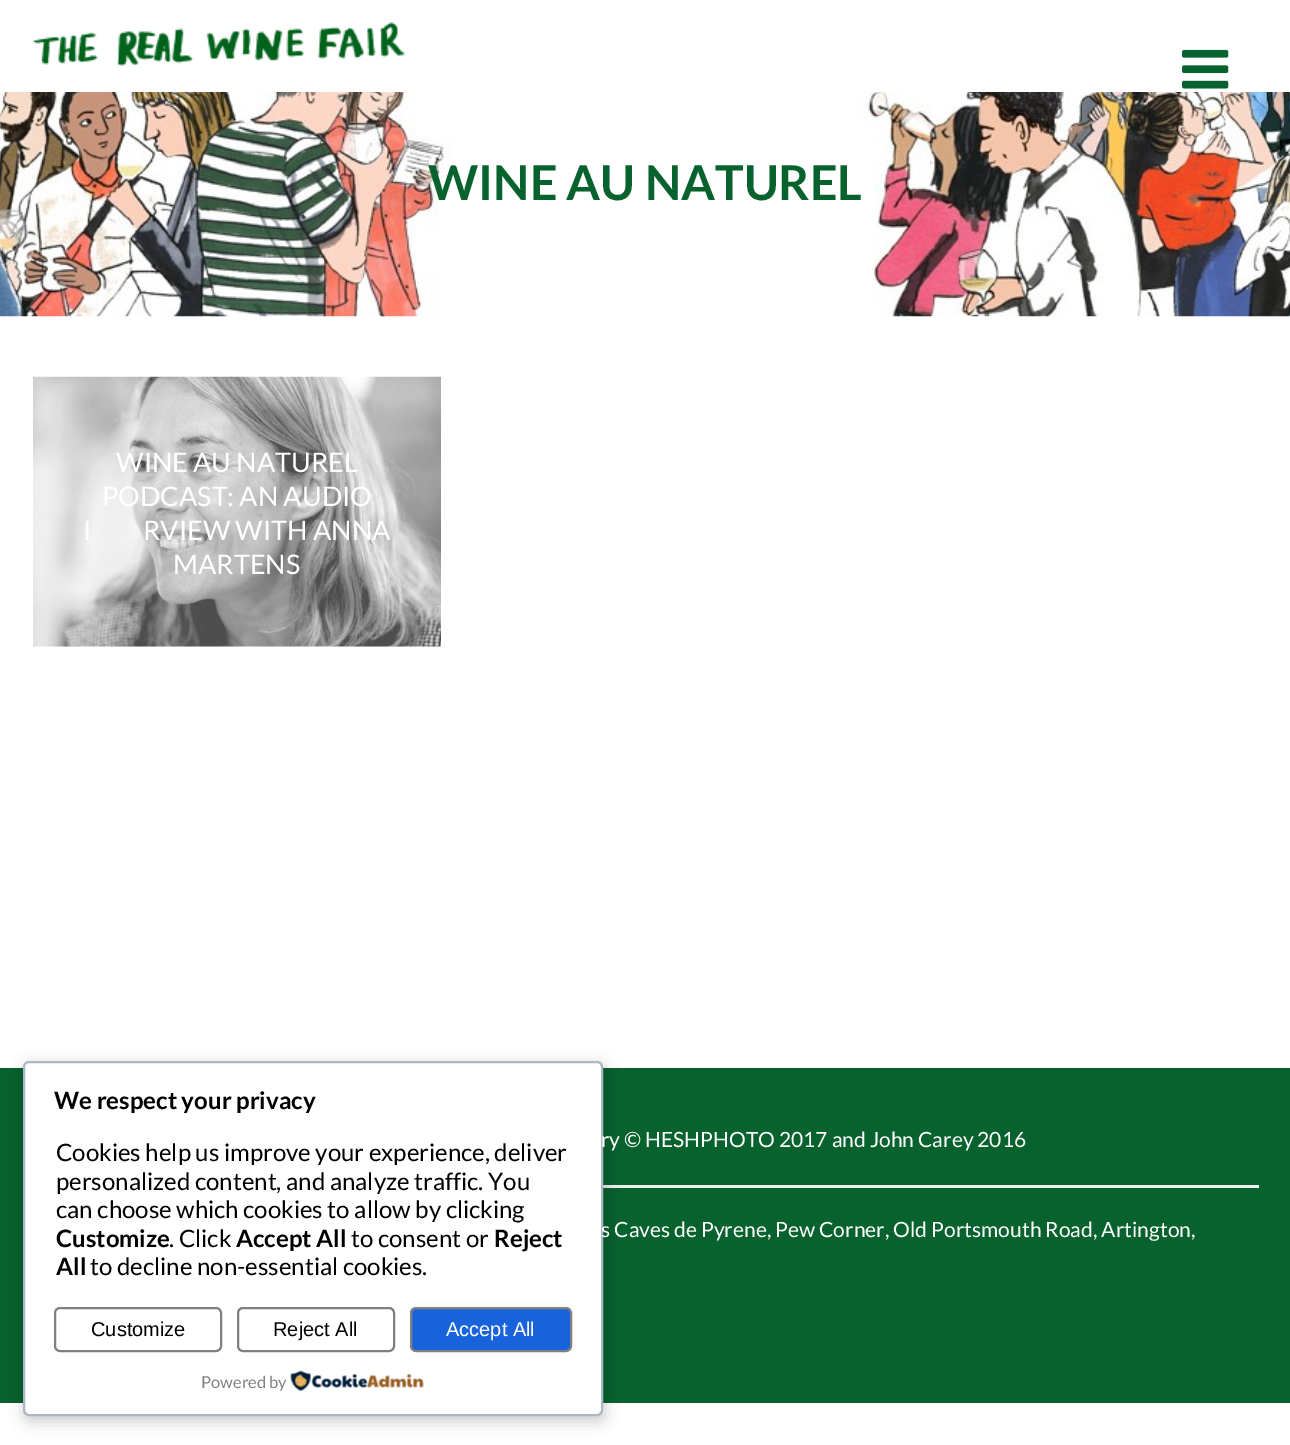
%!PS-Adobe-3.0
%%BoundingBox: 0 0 1290 1445
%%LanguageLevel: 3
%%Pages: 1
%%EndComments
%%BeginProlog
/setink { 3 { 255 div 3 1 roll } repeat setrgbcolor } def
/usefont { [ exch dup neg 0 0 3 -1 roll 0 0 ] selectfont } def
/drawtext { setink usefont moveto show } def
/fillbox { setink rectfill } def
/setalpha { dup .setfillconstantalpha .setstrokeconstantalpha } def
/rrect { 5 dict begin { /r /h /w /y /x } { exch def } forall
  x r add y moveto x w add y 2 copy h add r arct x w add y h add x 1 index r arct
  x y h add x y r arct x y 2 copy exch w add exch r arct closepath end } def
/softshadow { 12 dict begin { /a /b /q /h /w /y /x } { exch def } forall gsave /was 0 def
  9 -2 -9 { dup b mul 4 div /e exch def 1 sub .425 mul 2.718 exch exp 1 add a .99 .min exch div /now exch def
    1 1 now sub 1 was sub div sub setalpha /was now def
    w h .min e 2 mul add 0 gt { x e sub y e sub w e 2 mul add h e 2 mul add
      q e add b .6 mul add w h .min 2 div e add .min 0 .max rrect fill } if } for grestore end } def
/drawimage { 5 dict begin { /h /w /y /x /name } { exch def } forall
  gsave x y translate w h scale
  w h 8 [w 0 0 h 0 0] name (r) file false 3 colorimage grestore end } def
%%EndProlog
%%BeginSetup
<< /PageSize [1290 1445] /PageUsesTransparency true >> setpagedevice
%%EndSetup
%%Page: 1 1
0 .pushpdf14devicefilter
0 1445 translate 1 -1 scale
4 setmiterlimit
0 0 1290 1445 255 255 255 fillbox
(assets/img1.rgb) 33 22 373 45 drawimage
(assets/img2.rgb) 1182 49 47 40 drawimage
(assets/img3.rgb) 0 92 1290 225 drawimage
(WINE AU NATUREL) 428 200 /Lato-Bold 48 7 98 45 drawtext
(assets/img4.rgb) 33 376 408 271 drawimage
(WINE AU NATUREL) 116 472 /Lato-Regular 27 255 255 255 drawtext
(PODCAST: AN AUDIO) 102 506 /Lato-Regular 27 255 255 255 drawtext
(I) 83 540 /Lato-Regular 27 255 255 255 drawtext
(RVIEW WITH ANNA) 143 540 /Lato-Regular 27 255 255 255 drawtext
(MARTENS) 173 574 /Lato-Regular 27 255 255 255 drawtext
0 1068 1290 335 7 98 45 fillbox
603 1185 656 3 238 238 238 fillbox
0 0 0 setink
24 1065 581 356 6 7.5 0.2 softshadow
255 255 255 setink
24 1062 578 353 5 rrect gsave fill grestore
171 184 195 setink
2 setlinewidth
stroke
(We respect your privacy) 54 1109 /Lato-Bold 24 0 0 0 drawtext
(Cookies help us improve your experience, deliver) 56 1161 /Lato-Regular 24 0 0 0 drawtext
(personalized content, and analyze traffic. You) 56 1190 /Lato-Regular 24 0 0 0 drawtext
(can choose which cookies to allow by clicking) 56 1218 /Lato-Regular 24 0 0 0 drawtext
(Customize) 56 1247 /Lato-Bold 24 0 0 0 drawtext
(. Click) 169 1247 /Lato-Regular 24 0 0 0 drawtext
(Accept All) 236 1247 /Lato-Bold 24 0 0 0 drawtext
(to consent or) 351 1247 /Lato-Regular 24 0 0 0 drawtext
(Reject) 494 1247 /Lato-Bold 24 0 0 0 drawtext
(All) 56 1275 /Lato-Bold 24 0 0 0 drawtext
(to decline non-essential cookies.) 90 1275 /Lato-Regular 24 0 0 0 drawtext
128 128 128 setink
55 1308 166 43 5 rrect stroke
(Customize) 91 1336 /LiberationSans-Regular 20 0 0 0 drawtext
128 128 128 setink
238 1308 156 43 5 rrect stroke
(Reject All) 273 1336 /LiberationSans-Regular 20 0 0 0 drawtext
24 99 220 setink
411 1308 160 43 5 rrect gsave fill grestore
128 128 128 setink
stroke
(Accept All) 446 1336 /LiberationSans-Regular 20 255 255 255 drawtext
(Powered by) 201 1388 /Lato-Regular 16.5 129 129 129 drawtext
(assets/img5.rgb) 290 1370 134 22 drawimage
(ry) 601 1147 /Lato-Regular 21 255 255 255 drawtext
(©) 624 1147 /Lato-Italic 21 255 255 255 drawtext
(HESHPHOTO 2017 and John Carey 2016) 645 1147 /Lato-Regular 21 255 255 255 drawtext
(s Caves de Pyrene, Pew Corner, Old Portsmouth Road, Artington,) 601 1237 /Lato-Regular 21 255 255 255 drawtext
.poppdf14devicefilter showpage
%%EOF
